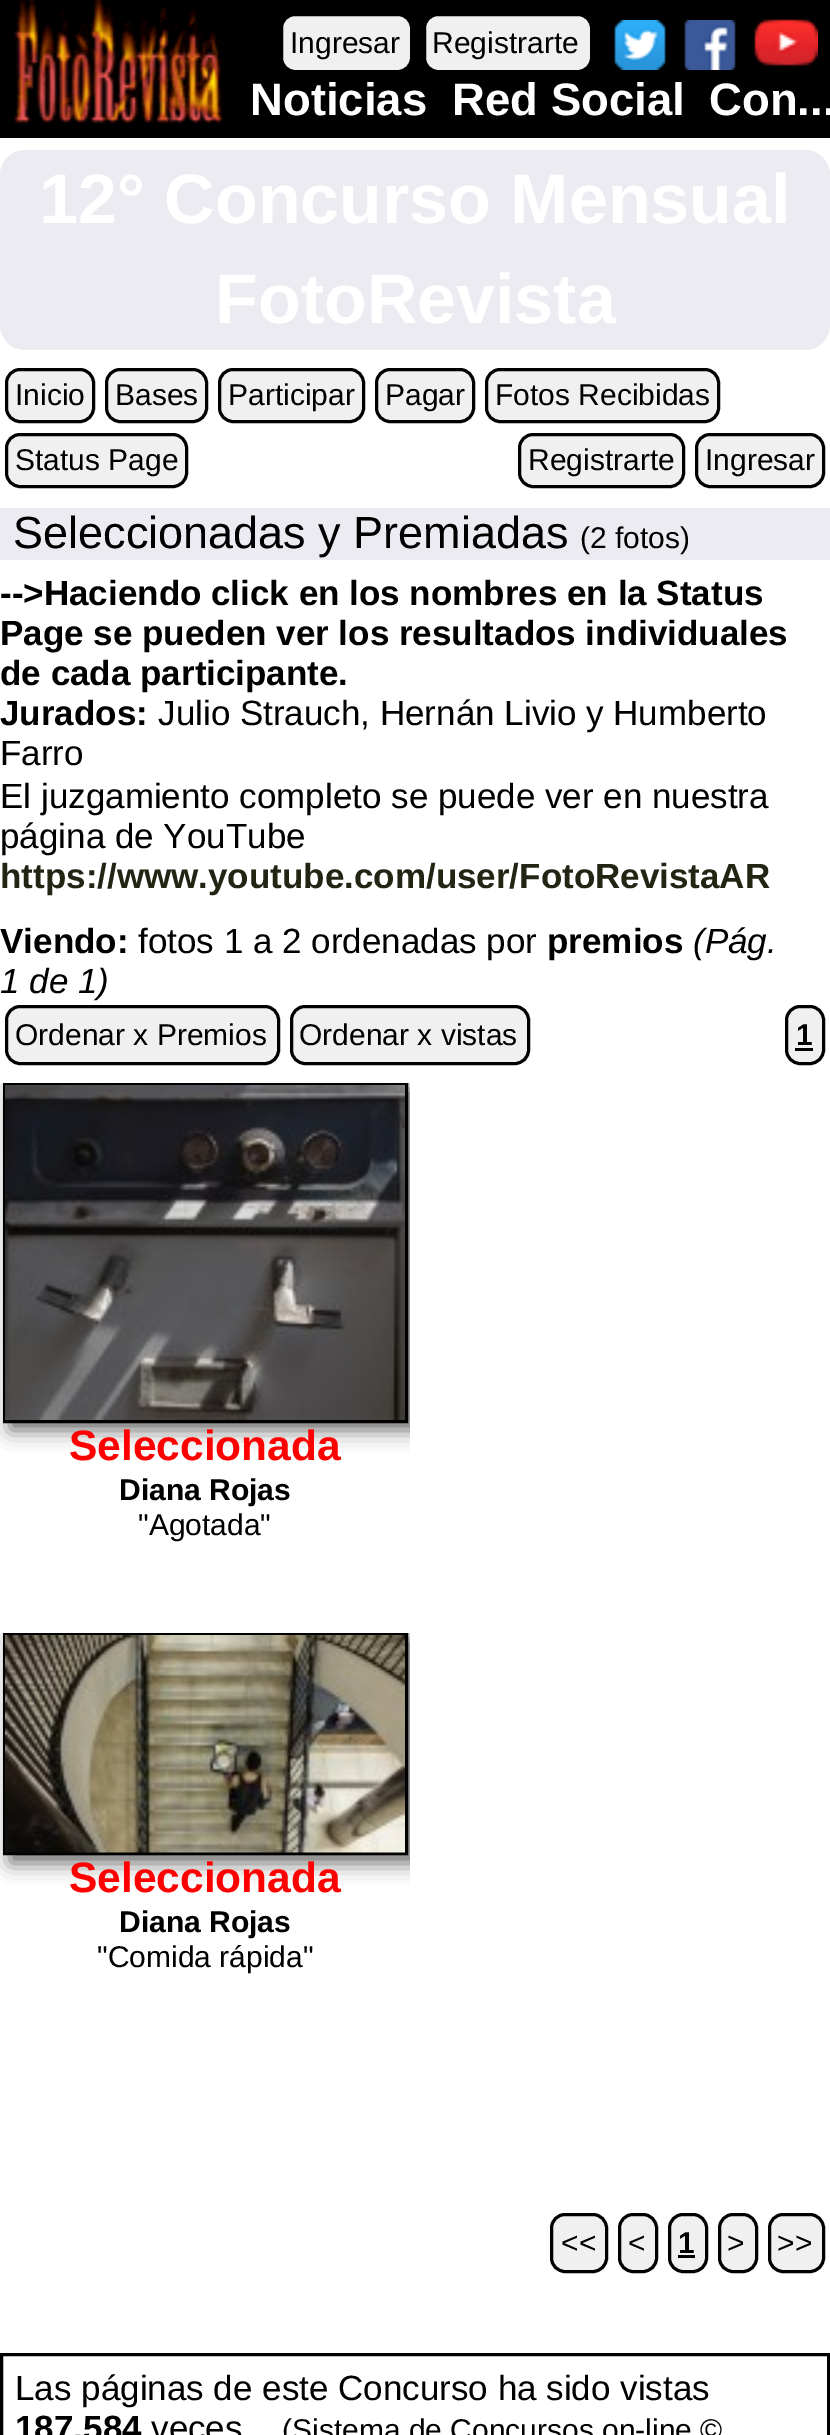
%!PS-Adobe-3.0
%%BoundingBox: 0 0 830 2435
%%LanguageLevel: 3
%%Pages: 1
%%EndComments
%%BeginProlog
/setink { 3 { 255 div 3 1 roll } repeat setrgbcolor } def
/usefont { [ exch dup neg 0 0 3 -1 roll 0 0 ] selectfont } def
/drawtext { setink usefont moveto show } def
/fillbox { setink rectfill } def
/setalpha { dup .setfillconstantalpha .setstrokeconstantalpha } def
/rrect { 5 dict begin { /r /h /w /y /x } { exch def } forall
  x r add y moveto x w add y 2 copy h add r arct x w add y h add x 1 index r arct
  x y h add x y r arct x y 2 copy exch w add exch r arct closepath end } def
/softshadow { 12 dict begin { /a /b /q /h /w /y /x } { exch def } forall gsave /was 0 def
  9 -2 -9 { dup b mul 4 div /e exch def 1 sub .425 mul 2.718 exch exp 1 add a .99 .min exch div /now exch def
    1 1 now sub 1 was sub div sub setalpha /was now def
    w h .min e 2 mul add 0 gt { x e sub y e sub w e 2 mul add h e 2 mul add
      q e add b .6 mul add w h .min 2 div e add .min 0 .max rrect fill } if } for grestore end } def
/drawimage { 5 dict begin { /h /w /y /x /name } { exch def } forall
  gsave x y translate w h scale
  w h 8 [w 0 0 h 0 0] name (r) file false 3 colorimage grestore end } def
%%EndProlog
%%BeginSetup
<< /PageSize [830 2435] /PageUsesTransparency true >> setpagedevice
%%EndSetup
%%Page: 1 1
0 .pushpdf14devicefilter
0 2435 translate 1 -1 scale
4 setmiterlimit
0 0 830 2435 255 255 255 fillbox
0 0 830 138 0 0 0 fillbox
(assets/img1.rgb) 13 0 212 124 drawimage
240 240 240 setink
281.5 14.5 130 57 13.5 rrect gsave fill grestore
0 0 0 setink
3 setlinewidth
stroke
(Ingresar) 290 53 /LiberationSans-Regular 30 0 0 0 drawtext
240 240 240 setink
424.5 14.5 167 57 13.5 rrect gsave fill grestore
0 0 0 setink
stroke
(Registrarte) 432 53 /LiberationSans-Regular 30 0 0 0 drawtext
(assets/img2.rgb) 614 20 52 50 drawimage
(assets/img3.rgb) 684 20 52 50 drawimage
(assets/img4.rgb) 754 19 64 47 drawimage
(Noticias) 250 115 /LiberationSans-Bold 45.5 255 255 255 drawtext
(Red Social) 452 115 /LiberationSans-Bold 45.5 255 255 255 drawtext
(Con...) 709 115 /LiberationSans-Bold 45.5 255 255 255 drawtext
235 235 241 setink
0 150 830 200 25 rrect fill
(12° Concurso Mensual) 39 223 /LiberationSans-Bold 70 255 255 255 drawtext
(FotoRevista) 215 323 /LiberationSans-Bold 70 255 255 255 drawtext
240 240 240 setink
6.5 369.5 87 52 13.5 rrect gsave fill grestore
0 0 0 setink
stroke
(Inicio) 15 405 /LiberationSans-Regular 30 0 0 0 drawtext
240 240 240 setink
106.5 369.5 100 52 13.5 rrect gsave fill grestore
0 0 0 setink
stroke
(Bases) 115 405 /LiberationSans-Regular 30 0 0 0 drawtext
240 240 240 setink
219.5 369.5 144 52 13.5 rrect gsave fill grestore
0 0 0 setink
stroke
(Participar) 228 405 /LiberationSans-Regular 30 0 0 0 drawtext
240 240 240 setink
376.5 369.5 97 52 13.5 rrect gsave fill grestore
0 0 0 setink
stroke
(Pagar) 385 405 /LiberationSans-Regular 30 0 0 0 drawtext
240 240 240 setink
486.5 369.5 232 52 13.5 rrect gsave fill grestore
0 0 0 setink
stroke
(Fotos Recibidas) 495 405 /LiberationSans-Regular 30 0 0 0 drawtext
240 240 240 setink
6.5 434.5 180 52 13.5 rrect gsave fill grestore
0 0 0 setink
stroke
(Status Page) 15 470 /LiberationSans-Regular 30 0 0 0 drawtext
240 240 240 setink
519.5 434.5 164 52 13.5 rrect gsave fill grestore
0 0 0 setink
stroke
(Registrarte) 528 470 /LiberationSans-Regular 30 0 0 0 drawtext
240 240 240 setink
696.5 434.5 127 52 13.5 rrect gsave fill grestore
0 0 0 setink
stroke
(Ingresar) 705 470 /LiberationSans-Regular 30 0 0 0 drawtext
0 508 830 52 235 235 241 fillbox
(Seleccionadas y Premiadas) 13 548 /LiberationSans-Regular 45 0 0 0 drawtext
(\(2 fotos\)) 580 548 /LiberationSans-Regular 30 0 0 0 drawtext
(-->Haciendo click en los nombres en la Status) 0 605 /LiberationSans-Bold 35 0 0 0 drawtext
(Page se pueden ver los resultados individuales) 0 645 /LiberationSans-Bold 35 0 0 0 drawtext
(de cada participante.) 0 685 /LiberationSans-Bold 35 0 0 0 drawtext
(Jurados:) 0 725 /LiberationSans-Bold 35 0 0 0 drawtext
(Julio Strauch, Hernán Livio y Humberto) 158 725 /LiberationSans-Regular 35 0 0 0 drawtext
(Farro) 0 765 /LiberationSans-Regular 35 0 0 0 drawtext
(El juzgamiento completo se puede ver en nuestra) 0 808 /LiberationSans-Regular 35 0 0 0 drawtext
(página de YouTube) 0 848 /LiberationSans-Regular 35 0 0 0 drawtext
(https://www.youtube.com/user/FotoRevistaAR) 0 888 /LiberationSans-Bold 35 36 36 21 drawtext
(Viendo:) 0 953 /LiberationSans-Bold 35 0 0 0 drawtext
(fotos 1 a 2 ordenadas por) 138 953 /LiberationSans-Regular 35 0 0 0 drawtext
(premios) 547 953 /LiberationSans-Bold 35 0 0 0 drawtext
(\(Pág.) 693 953 /LiberationSans-Italic 35 0 0 0 drawtext
(1 de 1\)) 0 993 /LiberationSans-Italic 35 0 0 0 drawtext
240 240 240 setink
6.5 1006.5 272 57 13.5 rrect gsave fill grestore
0 0 0 setink
stroke
(Ordenar x Premios) 15 1045 /LiberationSans-Regular 30 0 0 0 drawtext
240 240 240 setink
291.5 1006.5 237 57 13.5 rrect gsave fill grestore
0 0 0 setink
stroke
(Ordenar x vistas) 299 1045 /LiberationSans-Regular 30 0 0 0 drawtext
240 240 240 setink
786.5 1006.5 37 57 13.5 rrect gsave fill grestore
0 0 0 setink
stroke
(1) 796 1045 /LiberationSans-Bold 30 0 0 0 drawtext
795 1048 18 3 0 0 0 fillbox
gsave
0 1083 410 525 rectclip
102 102 102 setink
10 1090 405 340 0 10 1 softshadow
grestore
4.5 1084.5 402 337 rectstroke
(assets/img5.rgb) 5 1085 400 335 drawimage
(Seleccionada) 69 1460 /LiberationSans-Bold 42.5 255 0 0 drawtext
(Diana Rojas) 119 1500 /LiberationSans-Bold 30 0 0 0 drawtext
("Agotada") 138 1535 /LiberationSans-Regular 30 0 0 0 drawtext
gsave
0 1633 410 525 rectclip
102 102 102 setink
10 1640 405 223 0 10 1 softshadow
grestore
4.5 1634.5 402 219 rectstroke
(assets/img6.rgb) 5 1635 400 218 drawimage
(Seleccionada) 69 1892 /LiberationSans-Bold 42.5 255 0 0 drawtext
(Diana Rojas) 119 1932 /LiberationSans-Bold 30 0 0 0 drawtext
("Comida rápida") 97 1967 /LiberationSans-Regular 30 0 0 0 drawtext
240 240 240 setink
551.5 2214.5 55 57 13.5 rrect gsave fill grestore
0 0 0 setink
stroke
(<<) 561 2253 /LiberationSans-Regular 30 0 0 0 drawtext
240 240 240 setink
619.5 2214.5 37 57 13.5 rrect gsave fill grestore
0 0 0 setink
stroke
(<) 628 2253 /LiberationSans-Regular 30 0 0 0 drawtext
240 240 240 setink
669.5 2214.5 37 57 13.5 rrect gsave fill grestore
0 0 0 setink
stroke
(1) 678 2253 /LiberationSans-Bold 30 0 0 0 drawtext
678 2255 17 3 0 0 0 fillbox
240 240 240 setink
719.5 2214.5 37 57 13.5 rrect gsave fill grestore
0 0 0 setink
stroke
(>) 727 2253 /LiberationSans-Regular 30 0 0 0 drawtext
240 240 240 setink
769.5 2214.5 54 57 13.5 rrect gsave fill grestore
0 0 0 setink
stroke
(>>) 777 2253 /LiberationSans-Regular 30 0 0 0 drawtext
1.5 2354.5 827 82 rectstroke
(Las páginas de este Concurso ha sido vistas) 15 2400 /LiberationSans-Regular 35 0 0 0 drawtext
(187.584) 15 2440 /LiberationSans-Bold 35 0 0 0 drawtext
(veces) 151 2440 /LiberationSans-Regular 35 0 0 0 drawtext
(\(Sistema de Concursos on-line ©) 282 2440 /LiberationSans-Regular 30 0 0 0 drawtext
.poppdf14devicefilter showpage
%%EOF
